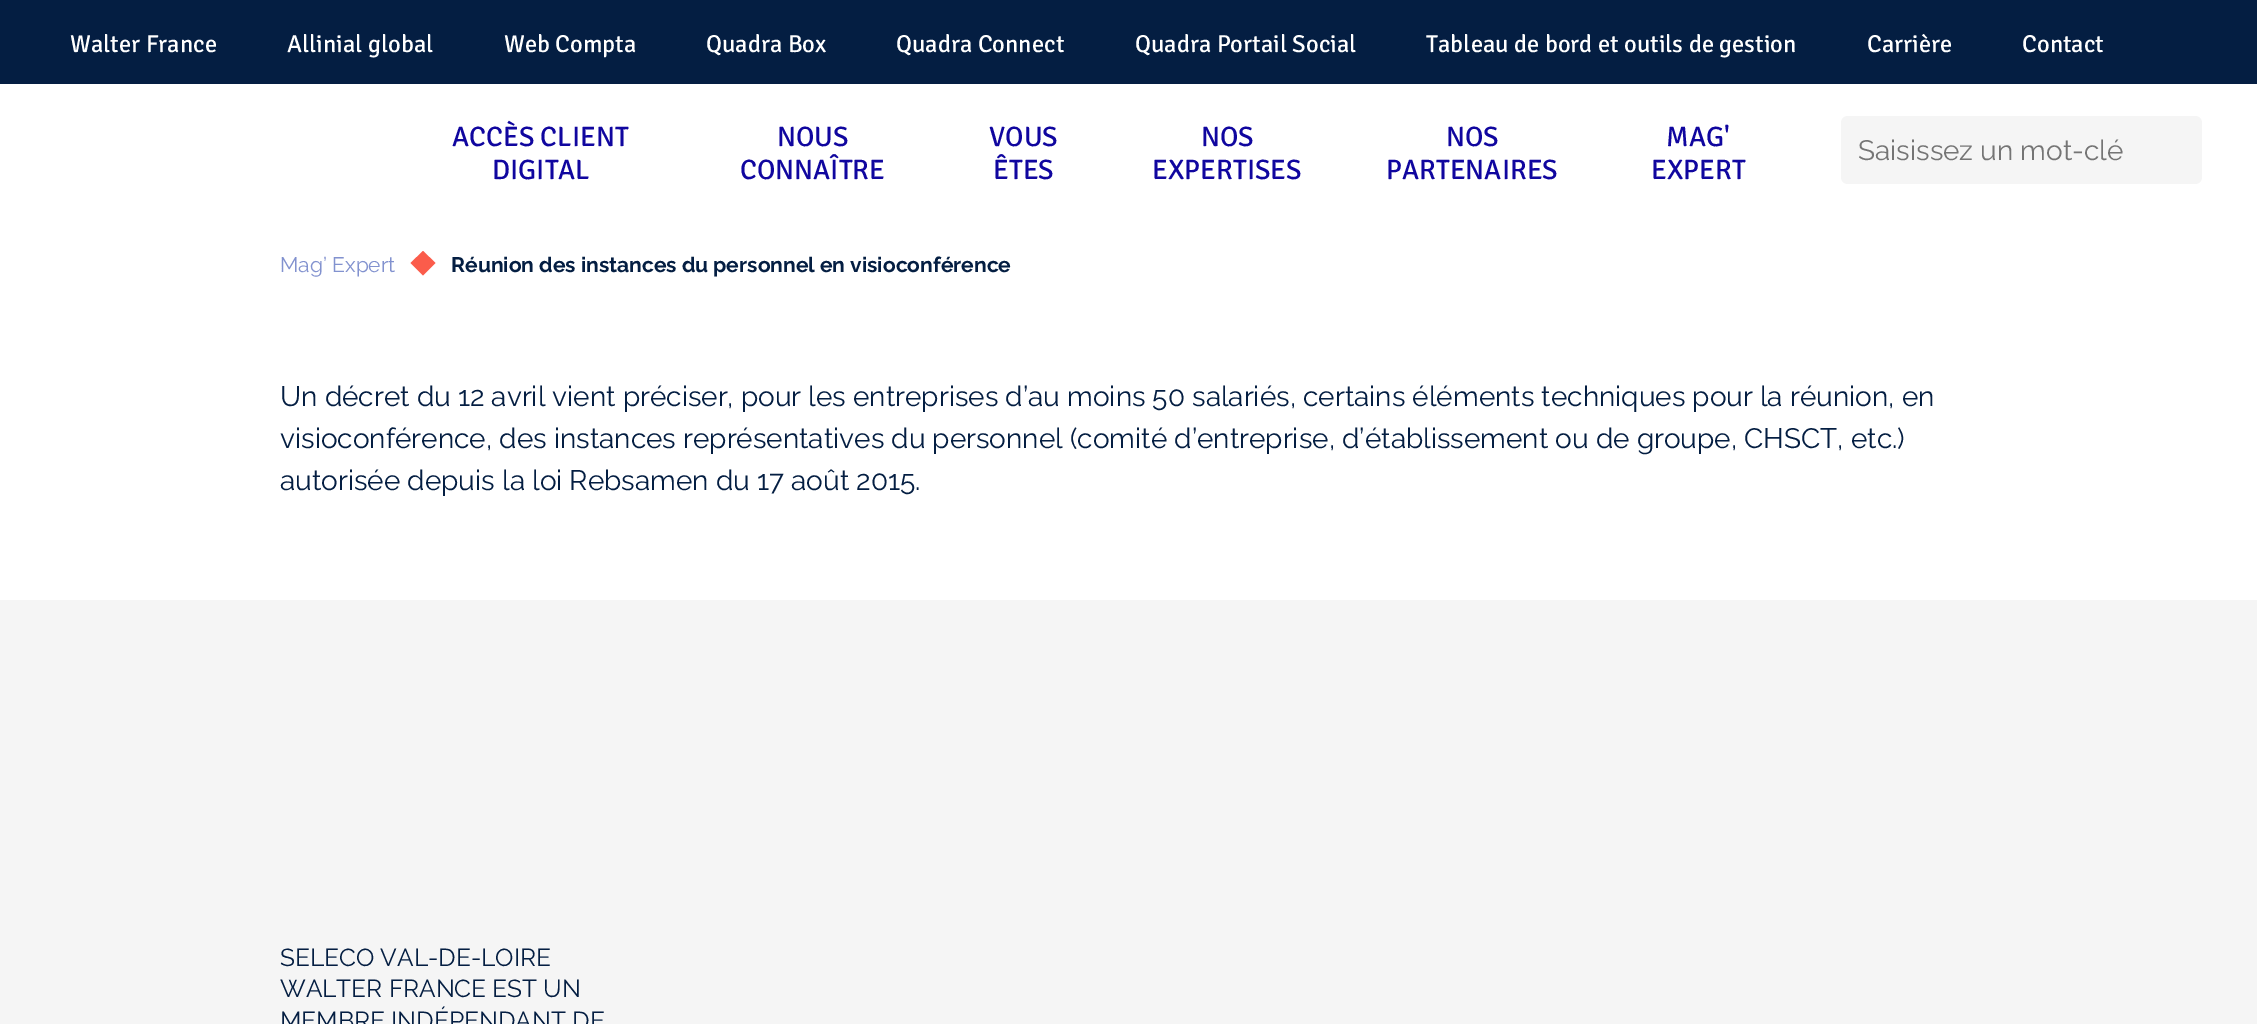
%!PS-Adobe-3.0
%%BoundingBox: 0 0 2257 1024
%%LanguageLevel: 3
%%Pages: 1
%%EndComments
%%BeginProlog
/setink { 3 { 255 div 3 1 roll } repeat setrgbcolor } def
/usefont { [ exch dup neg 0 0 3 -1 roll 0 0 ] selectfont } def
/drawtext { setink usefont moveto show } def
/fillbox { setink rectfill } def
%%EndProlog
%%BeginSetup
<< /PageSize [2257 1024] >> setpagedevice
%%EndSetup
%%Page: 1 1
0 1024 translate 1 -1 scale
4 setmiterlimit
0 0 2257 1024 255 255 255 fillbox
0 0 2257 84 4 30 66 fillbox
(Walter France) 70 52 /Signika-Regular 24.5 255 255 255 drawtext
(Allinial global) 287 52 /Signika-Regular 24.5 255 255 255 drawtext
(Web Compta) 504 52 /Signika-Regular 24.5 255 255 255 drawtext
(Quadra Box) 706 52 /Signika-Regular 24.5 255 255 255 drawtext
(Quadra Connect) 896 52 /Signika-Regular 24.5 255 255 255 drawtext
(Quadra Portail Social) 1135 52 /Signika-Regular 24.5 255 255 255 drawtext
(Tableau de bord et outils de gestion) 1426 52 /Signika-Regular 24.5 255 255 255 drawtext
(Carrière) 1867 52 /Signika-Regular 24.5 255 255 255 drawtext
(Contact) 2022 52 /Signika-Regular 24.5 255 255 255 drawtext
(ACCÈS CLIENT) 452 146 /Signika-Regular 28 16 6 159 drawtext
(DIGITAL) 492 179 /Signika-Regular 28 16 6 159 drawtext
(NOUS) 777 146 /Signika-Regular 28 16 6 159 drawtext
(CONNAÎTRE) 740 179 /Signika-Regular 28 16 6 159 drawtext
(VOUS) 989 146 /Signika-Regular 28 16 6 159 drawtext
(ÊTES) 993 179 /Signika-Regular 28 16 6 159 drawtext
(NOS) 1201 146 /Signika-Regular 28 16 6 159 drawtext
(EXPERTISES) 1152 179 /Signika-Regular 28 16 6 159 drawtext
(NOS) 1446 146 /Signika-Regular 28 16 6 159 drawtext
(PARTENAIRES) 1386 179 /Signika-Regular 28 16 6 159 drawtext
(MAG') 1666 146 /Signika-Regular 28 16 6 159 drawtext
(EXPERT) 1651 179 /Signika-Regular 28 16 6 159 drawtext
245 245 245 setink
1848 116 moveto 2147 116 lineto 2147 184 lineto 1848 184 lineto 1844 184 1841 181 1841 177 curveto 1841 123 lineto 1841 119 1844 116 1848 116 curveto closepath fill
(Saisissez un mot-clé) 1858 160 /Raleway-Regular 28 117 117 117 drawtext
245 245 245 setink
2147 116 moveto 2195 116 lineto 2199 116 2202 119 2202 123 curveto 2202 177 lineto 2202 181 2199 184 2195 184 curveto 2147 184 lineto closepath fill
(Mag’ Expert) 280 272 /Raleway-Regular 21 130 146 207 drawtext
251 92 75 setink
423 251 moveto 435.5 263 lineto 423 275.5 lineto 410.5 263 lineto closepath fill
(Réunion des instances du personnel en visioconférence) 451 272 /Raleway-Bold 21 4 30 66 drawtext
(Un décret du 12 avril vient préciser, pour les entreprises d’au moins 50 salariés, certains éléments techniques pour la réunion, en) 280 406 /Raleway-Regular 28 4 30 66 drawtext
(visioconférence, des instances représentatives du personnel \(comité d’entreprise, d’établissement ou de groupe, CHSCT, etc.\)) 280 448 /Raleway-Regular 28 4 30 66 drawtext
(autorisée depuis la loi Rebsamen du 17 août 2015.) 280 490 /Raleway-Regular 28 4 30 66 drawtext
0 600 2257 424 245 245 245 fillbox
(SELECO VAL-DE-LOIRE) 280 966 /Raleway-Regular 24.5 4 30 66 drawtext
(WALTER FRANCE EST UN) 280 997 /Raleway-Regular 24.5 4 30 66 drawtext
(MEMBRE INDÉPENDANT DE) 280 1029 /Raleway-Regular 24.5 4 30 66 drawtext
showpage
%%EOF
